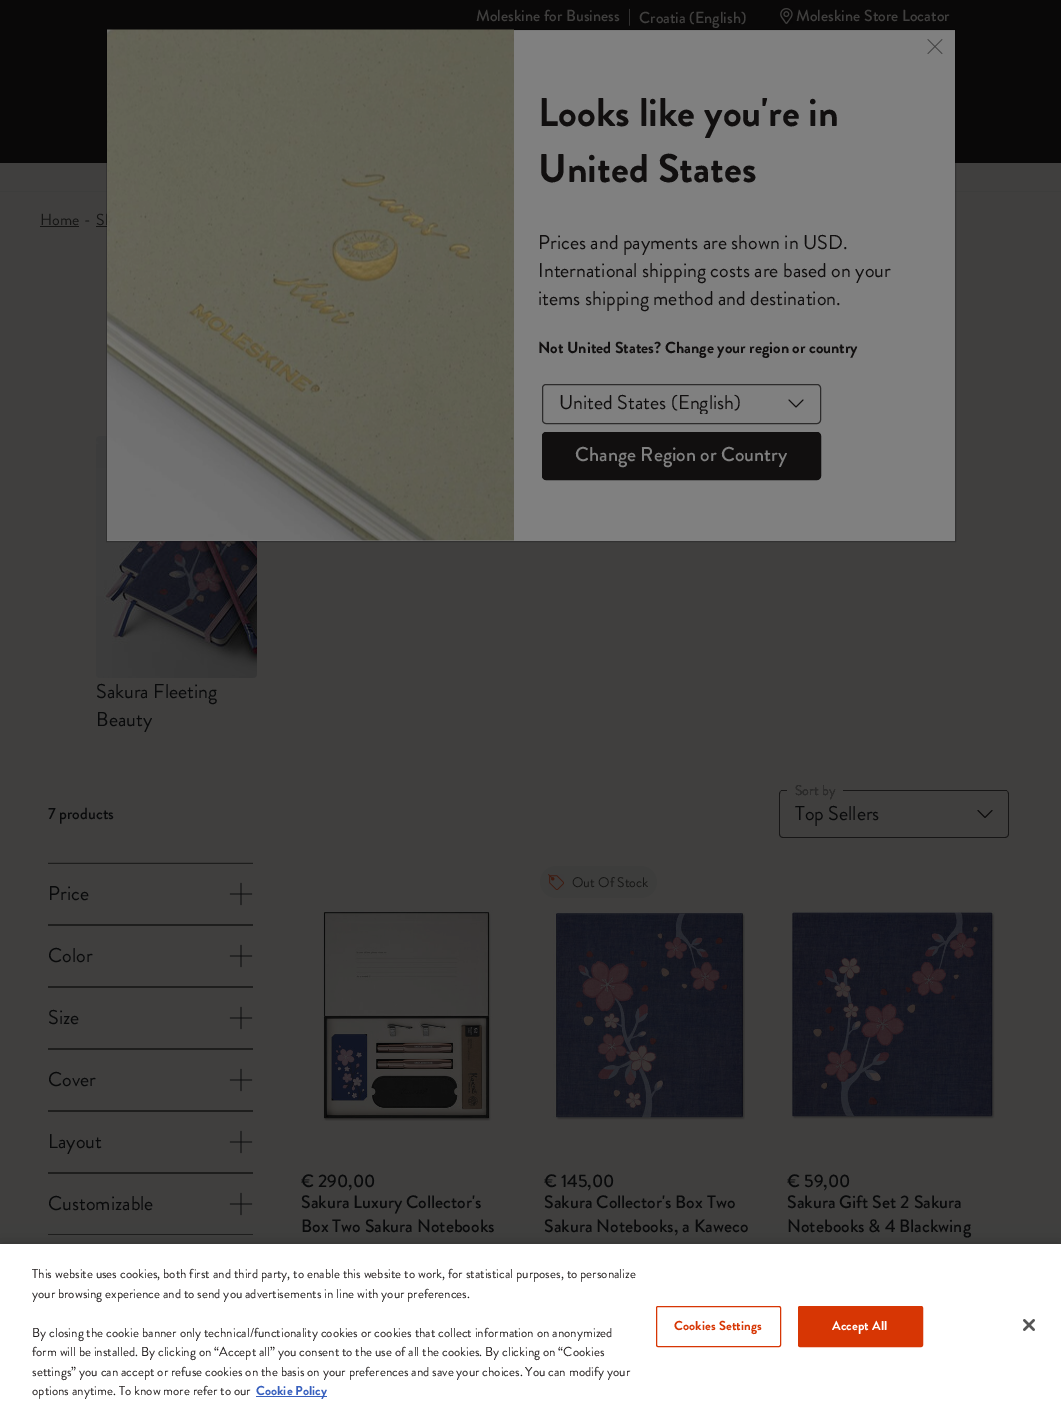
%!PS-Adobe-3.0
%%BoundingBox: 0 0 1061 1411
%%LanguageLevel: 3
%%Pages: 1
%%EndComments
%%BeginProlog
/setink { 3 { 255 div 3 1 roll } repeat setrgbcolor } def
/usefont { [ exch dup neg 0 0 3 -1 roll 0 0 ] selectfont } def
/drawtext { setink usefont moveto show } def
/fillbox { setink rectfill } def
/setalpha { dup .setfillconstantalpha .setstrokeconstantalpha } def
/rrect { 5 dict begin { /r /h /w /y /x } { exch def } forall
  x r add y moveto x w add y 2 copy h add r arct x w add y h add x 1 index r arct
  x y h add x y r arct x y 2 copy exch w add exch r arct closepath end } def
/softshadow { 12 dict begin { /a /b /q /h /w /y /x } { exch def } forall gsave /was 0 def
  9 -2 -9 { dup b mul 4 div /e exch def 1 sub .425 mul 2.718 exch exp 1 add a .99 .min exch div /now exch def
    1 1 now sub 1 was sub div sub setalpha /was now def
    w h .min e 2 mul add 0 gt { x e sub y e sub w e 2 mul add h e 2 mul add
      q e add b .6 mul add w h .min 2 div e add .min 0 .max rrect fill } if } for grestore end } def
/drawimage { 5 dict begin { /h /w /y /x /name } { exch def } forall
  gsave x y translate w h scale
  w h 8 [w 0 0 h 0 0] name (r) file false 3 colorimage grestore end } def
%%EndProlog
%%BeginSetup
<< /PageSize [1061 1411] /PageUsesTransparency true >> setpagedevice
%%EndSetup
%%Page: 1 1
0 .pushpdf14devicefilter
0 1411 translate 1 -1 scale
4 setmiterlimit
0 0 1061 1411 64 63 62 fillbox
0 0 1061 163 9 8 8 fillbox
(Moleskine for Business) 476 21 /BrandonGrotesque-Medium 16 64 63 62 drawtext
(|) 628 21 /BrandonGrotesque-Medium 16 64 63 62 drawtext
(Croatia \(English\)) 639 23 /BrandonGrotesque-Medium 16 64 63 62 drawtext
(assets/img1.rgb) 780 8 13 16 drawimage
(Moleskine Store Locator) 796 21 /BrandonGrotesque-Medium 16 64 63 62 drawtext
0 191 1061 1 61 61 60 fillbox
(Home) 40 225 /BrandonGrotesque-Regular 16 21 21 20 drawtext
40 226 39 1 21 21 20 fillbox
(-) 84 225 /BrandonGrotesque-Regular 16 21 21 20 drawtext
(Sh) 96 225 /BrandonGrotesque-Regular 16 21 21 20 drawtext
96 226 11 1 21 21 20 fillbox
(assets/img2.rgb) 96 436 161 242 drawimage
(Sakura Fleeting) 96 698 /BrandonGrotesque-Regular 20 9 10 11 drawtext
(Beauty) 96 726 /BrandonGrotesque-Regular 20 9 10 11 drawtext
(7 products) 48 819 /BrandonGrotesque-Medium 16 9 10 11 drawtext
9 8 8 setink
1 setlinecap
1 setlinejoin
978 810.5 moveto 985 817.5 lineto 992 810.5 lineto stroke
(Top Sellers) 795 820 /BrandonGrotesque-Regular 20 9 10 11 drawtext
23 22 22 setink
783 790 moveto 1005 790 lineto 1007 790 1009 792 1009 794 curveto 1009 834 lineto 1009 836 1007 838 1005 838 curveto 783 838 lineto 781 838 779 836 779 834 curveto 779 794 lineto 779 792 781 790 783 790 curveto closepath 783 790 moveto 1005 790 lineto 1007 790 1008 792 1008 794 curveto 1008 834 lineto 1008 836 1007 837 1005 837 curveto 783 837 lineto 781 837 780 836 780 834 curveto 780 794 lineto 780 792 781 790 783 790 curveto closepath eofill
(Sort by) 795 795 /BrandonGrotesque-Regular 14 21 21 20 drawtext
781 790 6 1 23 22 22 fillbox
(Sort by) 795 795 /BrandonGrotesque-Regular 14 45 44 44 drawtext
843 790 164 1 23 22 22 fillbox
48 862 205 1 56 55 54 fillbox
48 863 205 1 30 30 29 fillbox
48 924 205 2 30 30 29 fillbox
(Price) 48 900 /BrandonGrotesque-Regular 20 9 10 11 drawtext
(assets/img3.rgb) 229 882 24 24 drawimage
48 986 205 2 30 30 29 fillbox
(Color) 48 962 /BrandonGrotesque-Regular 20 9 10 11 drawtext
(assets/img3.rgb) 229 944 24 24 drawimage
48 1048 205 2 30 30 29 fillbox
(Size) 48 1024 /BrandonGrotesque-Regular 20 9 10 11 drawtext
(assets/img3.rgb) 229 1006 24 24 drawimage
48 1110 205 2 30 30 29 fillbox
(Cover) 48 1086 /BrandonGrotesque-Regular 20 9 10 11 drawtext
(assets/img3.rgb) 229 1068 24 24 drawimage
48 1172 205 2 30 30 29 fillbox
(Layout) 48 1148 /BrandonGrotesque-Regular 20 9 10 11 drawtext
(assets/img3.rgb) 229 1130 24 24 drawimage
48 1234 205 1 30 30 29 fillbox
(Customizable) 48 1210 /BrandonGrotesque-Regular 20 9 10 11 drawtext
(assets/img3.rgb) 229 1192 24 24 drawimage
(assets/img4.rgb) 322 910 171 211 drawimage
(€ 290,00) 301 1187 /BrandonGrotesque-Medium 18 9 10 11 drawtext
(Sakura Luxury Collector's) 301 1208 /BrandonGrotesque-Medium 18 9 10 11 drawtext
(Box Two Sakura Notebooks) 301 1232 /BrandonGrotesque-Medium 18 9 10 11 drawtext
61 61 60 setink
540 866 117 32 16 rrect fill
(assets/img5.rgb) 548 874 16 16 drawimage
(Out Of Stock) 572 887 /BrandonGrotesque-Regular 14 21 21 20 drawtext
(assets/img6.rgb) 553 910 192 210 drawimage
(€ 145,00) 544 1187 /BrandonGrotesque-Medium 18 9 10 11 drawtext
(Sakura Collector's Box Two) 544 1208 /BrandonGrotesque-Medium 18 9 10 11 drawtext
(Sakura Notebooks, a Kaweco) 544 1232 /BrandonGrotesque-Medium 18 9 10 11 drawtext
(assets/img7.rgb) 791 910 204 209 drawimage
(€ 59,00) 787 1187 /BrandonGrotesque-Medium 18 9 10 11 drawtext
(Sakura Gift Set 2 Sakura) 787 1208 /BrandonGrotesque-Medium 18 9 10 11 drawtext
(Notebooks & 4 Blackwing) 787 1232 /BrandonGrotesque-Medium 18 9 10 11 drawtext
107 30 848 511 128 128 128 fillbox
0.2 setalpha
0 0 0 setink
0 setlinecap
0 setlinejoin
106.5 29.5 849 512 rectstroke
1 setalpha
(assets/img8.rgb) 107 29 407 512 drawimage
(assets/img9.rgb) 927 39 16 15 drawimage
(Looks like you're in) 538 126 /BrandonGrotesque-Bold 40 17 15 15 drawtext
(United States) 538 182 /BrandonGrotesque-Bold 40 17 15 15 drawtext
(Prices and payments are shown in USD.) 538 249 /BrandonGrotesque-Regular 20 17 15 15 drawtext
(International shipping costs are based on your) 538 277 /BrandonGrotesque-Regular 20 17 15 15 drawtext
(items shipping method and destination.) 538 305 /BrandonGrotesque-Regular 20 17 15 15 drawtext
(Not United States? Change your region or country) 538 353 /BrandonGrotesque-Bold 16 17 15 15 drawtext
1 setlinecap
1 setlinejoin
789 400 moveto 796 407 lineto 803 400 lineto stroke
45 44 44 setink
0 setlinecap
0 setlinejoin
542.5 384.5 278 39 3.5 rrect stroke
gsave
559 394 229 20 rectclip
(United States \(English\)) 559 409 /BrandonGrotesque-Regular 20 17 15 15 drawtext
grestore
17 15 15 setink
542.5 432.5 278 47 3.5 rrect gsave fill grestore
stroke
(Change Region or Country) 575 461 /BrandonGrotesque-Medium 20 128 128 128 drawtext
0 0 0 setink
0 1244 1061 167 0 9 0.2 softshadow
0 1244 1061 167 255 255 255 fillbox
(This website uses cookies, both first and third party, to enable this website to work, for statistical purposes, to personalize) 32 1278 /BrandonGrotesque-Regular 13 33 29 29 drawtext
(your browsing experience and to send you advertisements in line with your preferences.) 32 1298 /BrandonGrotesque-Regular 13 33 29 29 drawtext
(By closing the cookie banner only technical/functionality cookies or cookies that collect information on anonymized) 32 1337 /BrandonGrotesque-Regular 13 33 29 29 drawtext
(form will be installed. By clicking on “Accept all” you consent to the use of all the cookies. By clicking on “Cookies) 32 1356 /BrandonGrotesque-Regular 13 33 29 29 drawtext
(settings” you can accept or refuse cookies on the basis on your preferences and save your choices. You can modify your) 32 1376 /BrandonGrotesque-Regular 13 33 29 29 drawtext
(options anytime. To know more refer to our) 32 1395 /BrandonGrotesque-Regular 13 33 29 29 drawtext
256 1396 71 1 56 96 190 fillbox
(Cookie Policy) 256 1395 /BrandonGrotesque-Bold 13 56 96 190 drawtext
215 54 4 setink
656.5 1306.5 124 40 1.5 rrect stroke
674 1330 moveto 0.1 0 (Cookies Settings) ashow
798.5 1306.5 124 40 1.5 rrect gsave fill grestore
stroke
255 255 255 setink
832 1330 moveto 0.1 0 (Accept All) ashow
(assets/img10.rgb) 1023 1319 12 12 drawimage
.poppdf14devicefilter showpage
%%EOF
